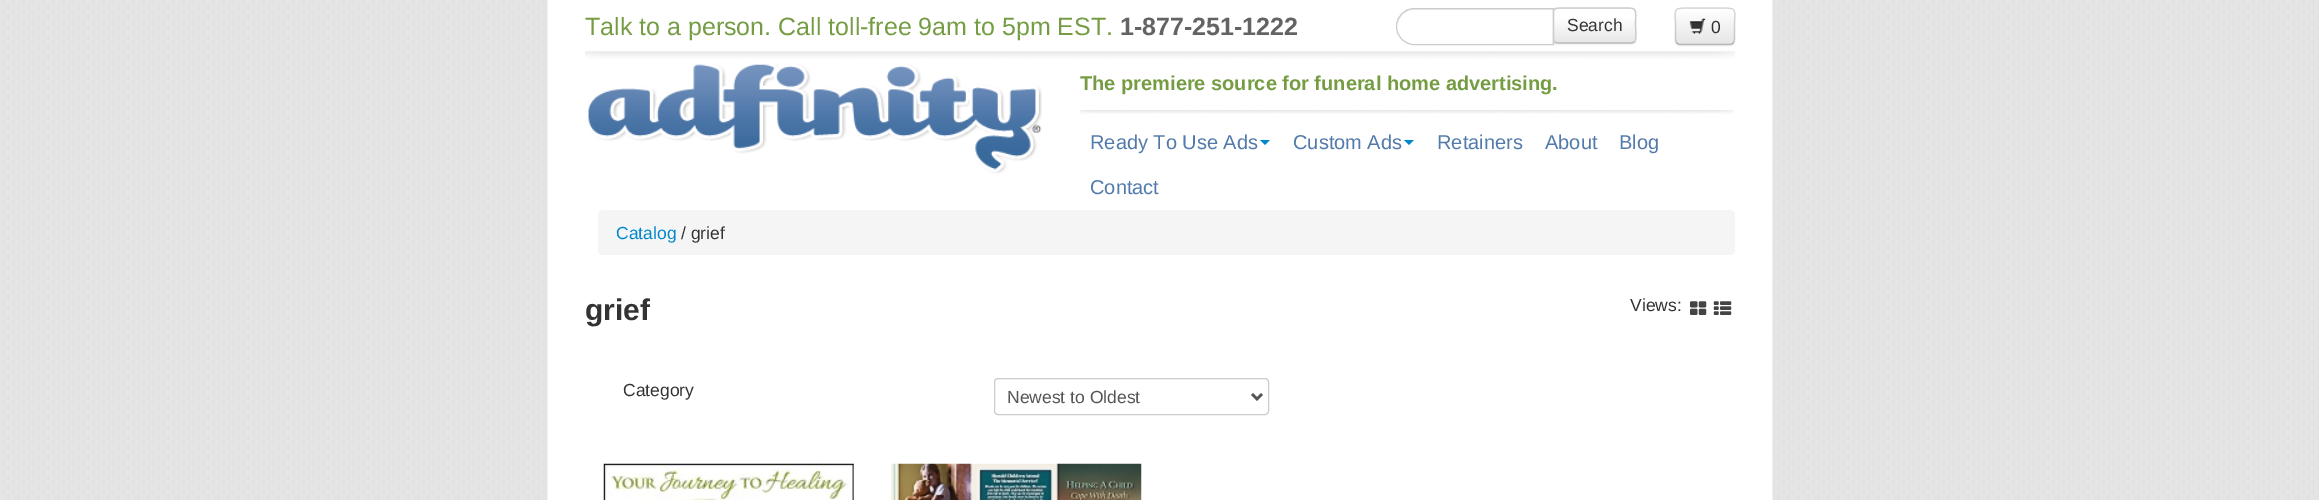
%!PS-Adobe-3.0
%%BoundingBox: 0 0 2319 500
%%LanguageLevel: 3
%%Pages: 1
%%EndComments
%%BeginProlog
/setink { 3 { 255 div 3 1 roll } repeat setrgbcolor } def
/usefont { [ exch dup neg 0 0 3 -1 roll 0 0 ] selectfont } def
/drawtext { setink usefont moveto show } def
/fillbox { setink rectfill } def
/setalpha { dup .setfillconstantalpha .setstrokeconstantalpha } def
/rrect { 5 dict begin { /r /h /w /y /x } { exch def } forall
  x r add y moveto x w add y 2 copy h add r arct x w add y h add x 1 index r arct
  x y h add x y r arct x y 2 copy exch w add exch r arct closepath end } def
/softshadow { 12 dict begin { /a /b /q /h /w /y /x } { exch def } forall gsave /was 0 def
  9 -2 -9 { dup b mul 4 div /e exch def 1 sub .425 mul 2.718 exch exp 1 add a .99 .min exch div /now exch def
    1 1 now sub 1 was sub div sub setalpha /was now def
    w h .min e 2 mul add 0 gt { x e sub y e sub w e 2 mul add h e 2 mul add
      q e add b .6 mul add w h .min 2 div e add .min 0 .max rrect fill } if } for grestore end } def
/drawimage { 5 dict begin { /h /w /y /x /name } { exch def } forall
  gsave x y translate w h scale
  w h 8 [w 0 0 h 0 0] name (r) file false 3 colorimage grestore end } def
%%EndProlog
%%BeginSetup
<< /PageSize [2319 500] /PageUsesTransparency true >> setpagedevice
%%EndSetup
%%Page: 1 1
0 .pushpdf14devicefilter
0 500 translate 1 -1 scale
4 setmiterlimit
0 0 2319 500 255 255 255 fillbox
(assets/img1.rgb) 0 0 2319 500 drawimage
(Talk to a person. Call toll-free 9am to 5pm EST.) 585 35 /LiberationSans-Regular 25 117 156 67 drawtext
(1-877-251-1222) 1120 35 /LiberationSans-Bold 25 99 99 99 drawtext
0 0 0 setink
1553 9 83 36 5 1 0.05 softshadow
230 230 230 setink
1553 8 83 36 5 rrect fill
gsave
1553 8 83 36 5 rrect clip newpath
gsave 1554 9 moveto 1635 9 lineto 1635 43 lineto 1554 43 lineto closepath clip newpath
<< /ShadingType 2 /ColorSpace /DeviceRGB /Coords [1594 9 1594 43] /Extend [true true] /Function << /FunctionType 3 /Domain [0 1] /Functions [<< /FunctionType 2 /Domain [0 1] /C0 [1 1 1] /C1 [1 1 1] /N 1 >> << /FunctionType 2 /Domain [0 1] /C0 [1 1 1] /C1 [0.902 0.902 0.902] /N 1 >>] /Bounds [0.25] /Encode [0 1 0 1] >> >> shfill grestore
grestore
0.2 setalpha
255 255 255 setink
1558 10 moveto 1631 10 lineto 1633 10 1635 12 1635 14 curveto 1635 6 1624 9 1619 9 curveto 1570 9 lineto 1565 9 1554 6 1554 14 curveto 1554 12 1555 10 1558 10 curveto closepath fill
1 setalpha
187 187 187 setink
1.2 setlinewidth
1634.5 42 moveto 1631.5 43 lineto 1557 43 lineto 1554.5 42 lineto stroke
204 204 204 setink
1554.5 42 moveto 1552 39 1553 29 1553 25.5 curveto 1553 6.5 1550 8 1570 8 curveto 1619 8 lineto 1638.5 8 1635.5 6.5 1635.5 25.5 curveto 1635.5 29 1637 39 1634.5 42 curveto stroke
255 255 255 setink
1414 8 moveto 1554 8 lineto 1554 45 lineto 1414 45 lineto 1404 45 1396 37 1396 27 curveto 1396 26 lineto 1396 16 1404 8 1414 8 curveto closepath fill
236 236 236 setink
1414 10 moveto 1552 10 lineto 1552 44 lineto 1553 44 lineto 1553 9 lineto 1414 9 lineto 1405 9 1398 16 1398 25 curveto 1398 26 lineto 1398 17 1405 10 1414 10 curveto closepath fill
204 204 204 setink
1 setlinewidth
1414 8.5 moveto 1553.5 8.5 lineto 1553.5 44.5 lineto 1414 44.5 lineto 1404.5 44.5 1396.5 36.5 1396.5 27 curveto 1396.5 26 lineto 1396.5 16.5 1404.5 8.5 1414 8.5 curveto closepath stroke
(Search) 1567 31 /LiberationSans-Regular 17.5 51 51 51 drawtext
0 0 0 setink
1675 9 60 37 5 1 0.05 softshadow
245 245 245 setink
1675 8 60 37 5 rrect fill
gsave
1675 8 60 37 5 rrect clip newpath
gsave 1675 9 moveto 1735 9 lineto 1735 44 lineto 1675 44 lineto closepath clip newpath
<< /ShadingType 2 /ColorSpace /DeviceRGB /Coords [1705 9 1705 44] /Extend [true true] /Function << /FunctionType 2 /Domain [0 1] /C0 [1 1 1] /C1 [0.902 0.902 0.902] /N 1 >> >> shfill grestore
grestore
255 255 255 setink
1680 10 moveto 1730 10 lineto 1732 10 1734 12 1734 14 curveto 1734 7 1727 9 1722 9 curveto 1688 9 lineto 1683 9 1676 7 1676 14 curveto 1676 12 1678 10 1680 10 curveto closepath fill
0.25 setalpha
0 0 0 setink
1.2 setlinewidth
1733 43 moveto 1732.5 44 1731 44.5 1730 44.5 curveto 1680 44.5 lineto 1679 44.5 1677.5 44 1677 43 curveto stroke
0.15 setalpha
1677 43 moveto 1675 41 1675.5 38 1675.5 35.5 curveto 1675.5 26 lineto 1675.5 9 1672 8 1688.5 8 curveto 1721.5 8 lineto 1738 8 1734.5 9 1734.5 26 curveto 1734.5 35.5 lineto 1734.5 38 1735 41 1733 43 curveto stroke
1 setalpha
(assets/img2.rgb) 1689 18 17 17 drawimage
(0) 1711 33 /LiberationSans-Regular 17.5 51 51 51 drawtext
(assets/img3.rgb) 585 51 1150 8 drawimage
(assets/img4.rgb) 588 63 454 111 drawimage
(The premiere source for funeral home advertising.) 1080 90 /LiberationSans-Bold 20 117 156 67 drawtext
(assets/img5.rgb) 1080 110 654 4 drawimage
(Ready To Use Ads) 1090 149 /LiberationSans-Regular 20 82 122 171 drawtext
0 136 204 setink
1260 140 moveto 1270 140 lineto 1265 145 lineto closepath fill
(Custom Ads) 1293 149 /LiberationSans-Regular 20 82 122 171 drawtext
0 136 204 setink
1404 140 moveto 1414 140 lineto 1409 145 lineto closepath fill
(Retainers) 1437 149 /LiberationSans-Regular 20 82 122 171 drawtext
(About) 1545 149 /LiberationSans-Regular 20 82 122 171 drawtext
(Blog) 1619 149 /LiberationSans-Regular 20 82 122 171 drawtext
(Contact) 1090 194 /LiberationSans-Regular 20 82 122 171 drawtext
245 245 245 setink
598 210 1137 45 5 rrect fill
(Catalog) 616 239 /LiberationSans-Regular 17.5 0 136 204 drawtext
(/ grief) 681 239 /LiberationSans-Regular 17.5 51 51 51 drawtext
(grief) 585 320 /LiberationSans-Bold 30 51 51 51 drawtext
(Views:) 1630 311 /LiberationSans-Regular 17.5 51 51 51 drawtext
(assets/img6.rgb) 1690 301 17 14 drawimage
(assets/img7.rgb) 1713 301 19 14 drawimage
(Category) 623 396 /LiberationSans-Regular 17.5 51 51 51 drawtext
204 204 204 setink
1 setlinewidth
994.5 378.5 274 36 3.5 rrect stroke
85 85 85 setink
2.5 setlinewidth
1252 394 moveto 1257 399 lineto 1262 394 lineto stroke
(Newest to Oldest) 1007 403 /LiberationSans-Regular 17.5 85 85 85 drawtext
(assets/img8.rgb) 603 463 251 37 drawimage
(assets/img9.rgb) 891 463 251 37 drawimage
.poppdf14devicefilter showpage
%%EOF
